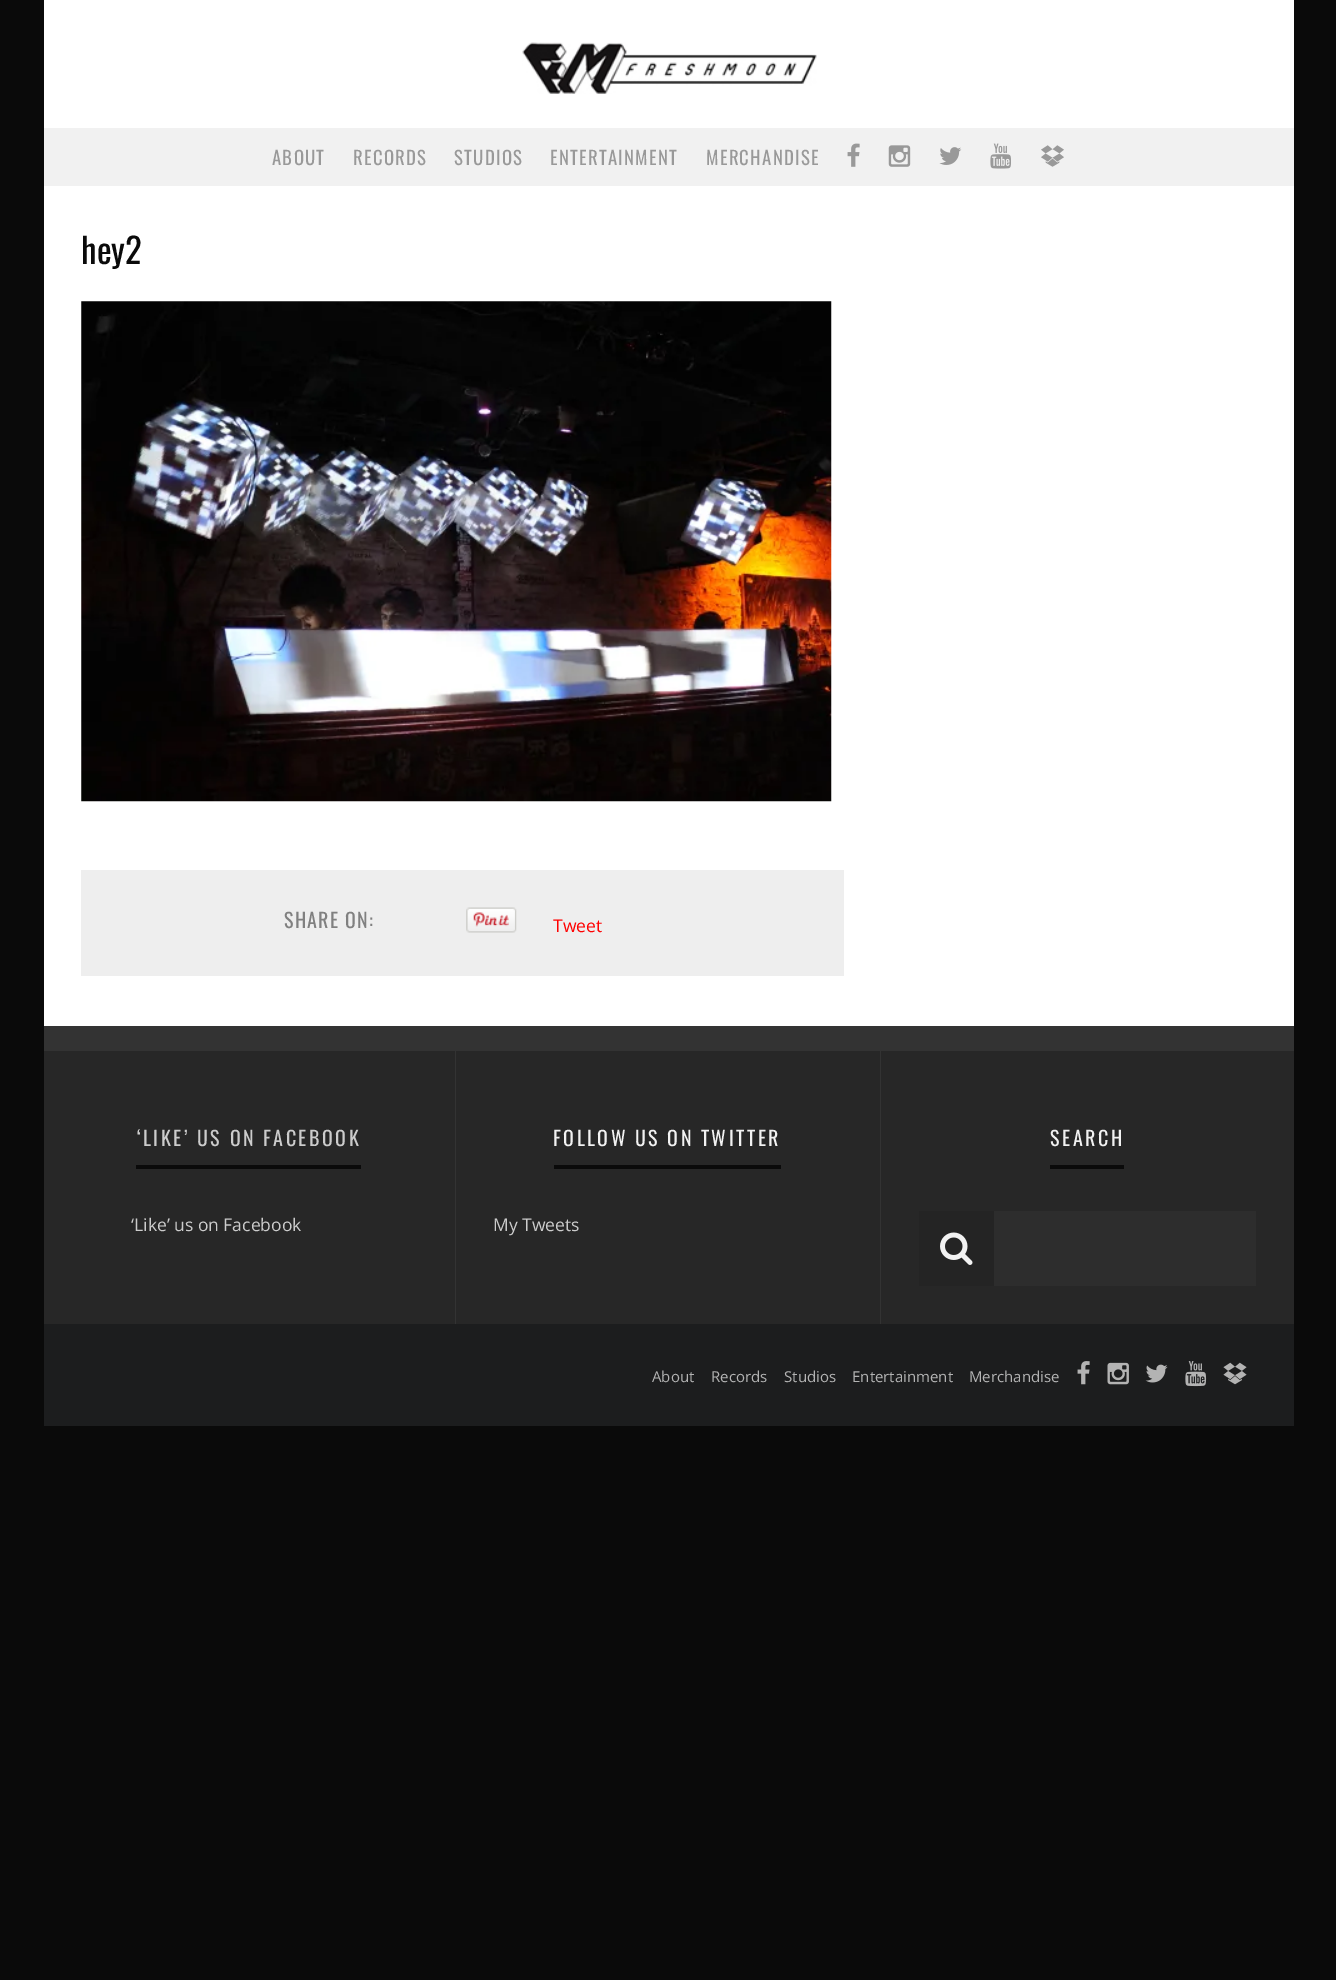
%!PS-Adobe-3.0
%%BoundingBox: 0 0 1336 1980
%%LanguageLevel: 3
%%Pages: 1
%%EndComments
%%BeginProlog
/setink { 3 { 255 div 3 1 roll } repeat setrgbcolor } def
/usefont { [ exch dup neg 0 0 3 -1 roll 0 0 ] selectfont } def
/drawtext { setink usefont moveto show } def
/fillbox { setink rectfill } def
/drawimage { 5 dict begin { /h /w /y /x /name } { exch def } forall
  gsave x y translate w h scale
  w h 8 [w 0 0 h 0 0] name (r) file false 3 colorimage grestore end } def
%%EndProlog
%%BeginSetup
<< /PageSize [1336 1980] >> setpagedevice
%%EndSetup
%%Page: 1 1
0 1980 translate 1 -1 scale
4 setmiterlimit
0 0 1336 1980 10 10 10 fillbox
44 0 1250 128 255 255 255 fillbox
(assets/img1.rgb) 522 42 295 52 drawimage
44 128 1250 58 241 241 241 fillbox
/Oswald-Regular 18.75 usefont
153 153 153 setink
272 165 moveto 1.25 0 (ABOUT) ashow
353 165 moveto 1.25 0 (RECORDS) ashow
454 165 moveto 1.25 0 (STUDIOS) ashow
550 165 moveto 1.25 0 (ENTERTAINMENT) ashow
706 165 moveto 1.25 0 (MERCHANDISE) ashow
(assets/img2.rgb) 847 143 13 24 drawimage
(assets/img3.rgb) 888 145 23 22 drawimage
(assets/img4.rgb) 939 147 23 18 drawimage
(assets/img5.rgb) 990 143 21 26 drawimage
(assets/img6.rgb) 1041 145 23 22 drawimage
44 186 1250 840 255 255 255 fillbox
(hey2) 81 264 /Oswald-Regular 35 10 10 10 drawtext
(assets/img7.rgb) 81 301 751 501 drawimage
81 870 763 106 238 238 238 fillbox
/Oswald-Regular 20 usefont
128 128 128 setink
284 928 moveto 1.25 0 (SHARE ON:) ashow
(assets/img8.rgb) 466 907 51 26 drawimage
(Tweet) 553 932 /OpenSans-Regular 17.5 255 0 0 drawtext
44 1051 1250 273 39 39 39 fillbox
44 1026 1250 25 51 51 51 fillbox
455 1051 1 273 51 51 51 fillbox
/Oswald-Regular 20 usefont
204 204 204 setink
137 1146 moveto 2.5 0 (‘LIKE’ US ON FACEBOOK) ashow
136 1165 225 4 10 10 10 fillbox
(‘Like’ us on Facebook) 131 1231 /OpenSans-Regular 17.5 204 204 204 drawtext
880 1051 1 273 51 51 51 fillbox
/Oswald-Regular 20 usefont
242 242 242 setink
553 1146 moveto 2.5 0 (FOLLOW US ON TWITTER) ashow
554 1165 227 4 10 10 10 fillbox
(My Tweets) 493 1231 /OpenSans-Regular 17.5 204 204 204 drawtext
/Oswald-Regular 20 usefont
242 242 242 setink
1050 1146 moveto 2.5 0 (SEARCH) ashow
1050 1165 74 4 10 10 10 fillbox
919 1211 75 75 36 36 36 fillbox
(assets/img9.rgb) 940 1232 33 33 drawimage
994 1211 262 75 45 45 45 fillbox
44 1324 1250 102 28 29 30 fillbox
(About) 652 1382 /OpenSans-Regular 15 179 179 179 drawtext
(Records) 711 1382 /OpenSans-Regular 15 179 179 179 drawtext
(Studios) 784 1382 /OpenSans-Regular 15 179 179 179 drawtext
(Entertainment) 852 1382 /OpenSans-Regular 15 179 179 179 drawtext
(Merchandise) 969 1382 /OpenSans-Regular 15 179 179 179 drawtext
(assets/img10.rgb) 1077 1361 13 24 drawimage
(assets/img11.rgb) 1107 1362 22 23 drawimage
(assets/img12.rgb) 1145 1364 23 19 drawimage
(assets/img13.rgb) 1185 1361 22 26 drawimage
(assets/img14.rgb) 1223 1362 24 23 drawimage
showpage
%%EOF
